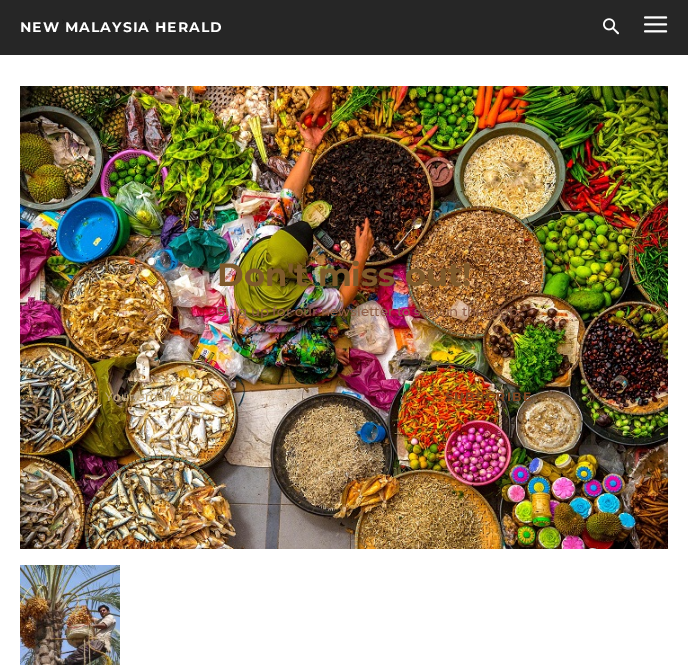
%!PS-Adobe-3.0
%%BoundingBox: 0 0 688 666
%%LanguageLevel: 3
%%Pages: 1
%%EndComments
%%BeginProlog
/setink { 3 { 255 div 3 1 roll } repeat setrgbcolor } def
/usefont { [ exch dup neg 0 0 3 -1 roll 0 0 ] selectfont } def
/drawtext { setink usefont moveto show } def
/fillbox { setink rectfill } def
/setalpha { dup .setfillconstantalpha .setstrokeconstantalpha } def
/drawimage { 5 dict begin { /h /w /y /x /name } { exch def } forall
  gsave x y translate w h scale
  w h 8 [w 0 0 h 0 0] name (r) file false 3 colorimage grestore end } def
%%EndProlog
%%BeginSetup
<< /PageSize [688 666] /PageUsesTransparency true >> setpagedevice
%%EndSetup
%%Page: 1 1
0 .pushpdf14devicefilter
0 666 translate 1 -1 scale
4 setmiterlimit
0 0 688 666 255 255 255 fillbox
(assets/img1.rgb) 62 19 3 5 drawimage
(assets/img1.rgb) 149 19 3 5 drawimage
(assets/img2.rgb) 20 86 648 463 drawimage
(assets/img3.rgb) 20 565 100 100 drawimage
0.85 setalpha
0 0 688 55 0 0 0 fillbox
/Montserrat-Bold 14 usefont
1 setalpha
255 255 255 setink
20 32 moveto 1 0 (NEW MALAYSIA HERALD) ashow
(assets/img4.rgb) 603 18 16 17 drawimage
(assets/img5.rgb) 644 16 24 17 drawimage
(Don't miss out!) 217 286 /Montserrat-Bold 32.25 126 90 43 drawtext
(Sing up for our newsletter to stay in the loop.) 217 316 /Montserrat-Medium 13.3 143 94 71 drawtext
(Your email address) 105 401 /Montserrat-Medium 12.25 191 166 123 drawtext
/Montserrat-Bold 12.25 usefont
128 72 34 setink
445 401 moveto 1.5 0 (SUBSCRIBE) ashow
.poppdf14devicefilter showpage
%%EOF
